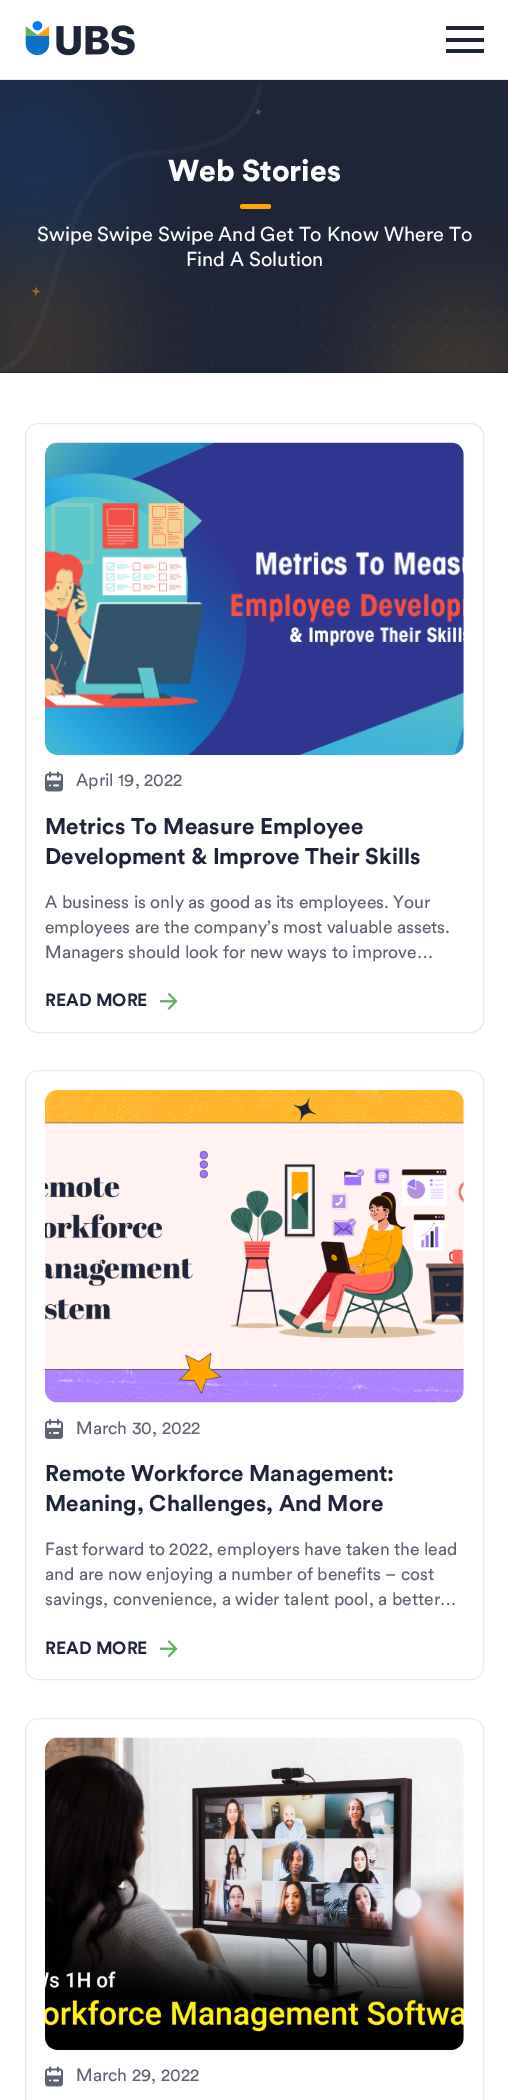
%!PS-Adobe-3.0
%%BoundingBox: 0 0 508 2100
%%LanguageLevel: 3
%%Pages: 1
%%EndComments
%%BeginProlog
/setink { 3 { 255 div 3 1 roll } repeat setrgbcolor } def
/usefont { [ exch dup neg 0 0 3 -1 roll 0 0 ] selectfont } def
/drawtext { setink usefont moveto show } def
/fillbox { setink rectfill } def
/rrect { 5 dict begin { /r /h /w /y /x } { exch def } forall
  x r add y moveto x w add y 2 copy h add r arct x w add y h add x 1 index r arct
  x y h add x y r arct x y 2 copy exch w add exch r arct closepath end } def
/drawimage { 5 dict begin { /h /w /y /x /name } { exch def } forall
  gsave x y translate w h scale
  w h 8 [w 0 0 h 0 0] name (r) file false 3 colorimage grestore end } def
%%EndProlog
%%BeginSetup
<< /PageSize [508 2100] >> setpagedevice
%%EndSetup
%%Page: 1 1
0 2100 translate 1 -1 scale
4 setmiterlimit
0 0 508 2100 255 255 255 fillbox
0 79 508 1 232 234 242 fillbox
(assets/img1.rgb) 25 21 110 35 drawimage
446 26 38 4 30 37 56 fillbox
446 38 38 4 30 37 56 fillbox
446 49 38 4 30 37 56 fillbox
0 80 508 293 30 37 56 fillbox
(assets/img2.rgb) 0 80 508 292 drawimage
(Web Stories) 168 181 /Circular-Black 30 255 255 255 drawtext
255 167 0 setink
240 204 31 5 2.5 rrect fill
(Swipe Swipe Swipe And Get To Know Where To) 37 241 /Circular-Regular 20 255 255 255 drawtext
(Find A Solution) 186 266 /Circular-Regular 20 255 255 255 drawtext
232 234 242 setink
25.5 423.5 458 609 12.5 rrect stroke
(assets/img3.rgb) 45 442 419 313 drawimage
(assets/img4.rgb) 45 771 18 21 drawimage
(April 19, 2022) 76 786 /Circular-Regular 17.5 93 99 114 drawtext
(Metrics To Measure Employee) 45 834 /Circular-Bold 22.5 30 37 56 drawtext
(Development & Improve Their Skills) 45 864 /Circular-Bold 22.5 30 37 56 drawtext
(A business is only as good as its employees. Your) 45 908 /Circular-Regular 17.5 93 99 114 drawtext
(employees are the company’s most valuable assets.) 45 933 /Circular-Regular 17.5 93 99 114 drawtext
(Managers should look for new ways to improve…) 45 958 /Circular-Regular 17.5 93 99 114 drawtext
(READ MORE) 45 1006 /Circular-Bold 17.5 30 37 56 drawtext
(assets/img5.rgb) 160 993 18 17 drawimage
232 234 242 setink
25.5 1070.5 458 609 12.5 rrect stroke
(assets/img6.rgb) 45 1090 419 313 drawimage
(assets/img7.rgb) 45 1419 18 20 drawimage
(March 30, 2022) 76 1434 /Circular-Regular 17.5 93 99 114 drawtext
(Remote Workforce Management:) 45 1481 /Circular-Bold 22.5 30 37 56 drawtext
(Meaning, Challenges, And More) 45 1511 /Circular-Bold 22.5 30 37 56 drawtext
(Fast forward to 2022, employers have taken the lead) 45 1555 /Circular-Regular 17.5 93 99 114 drawtext
(and are now enjoying a number of benefits – cost) 45 1580 /Circular-Regular 17.5 93 99 114 drawtext
(savings, convenience, a wider talent pool, a better…) 45 1605 /Circular-Regular 17.5 93 99 114 drawtext
(READ MORE) 45 1654 /Circular-Bold 17.5 30 37 56 drawtext
(assets/img8.rgb) 160 1640 18 18 drawimage
232 234 242 setink
25.5 1718.5 458 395 12.5 rrect stroke
(assets/img9.rgb) 45 1737 419 313 drawimage
(assets/img4.rgb) 45 2066 18 21 drawimage
(March 29, 2022) 76 2081 /Circular-Regular 17.5 93 99 114 drawtext
showpage
%%EOF
